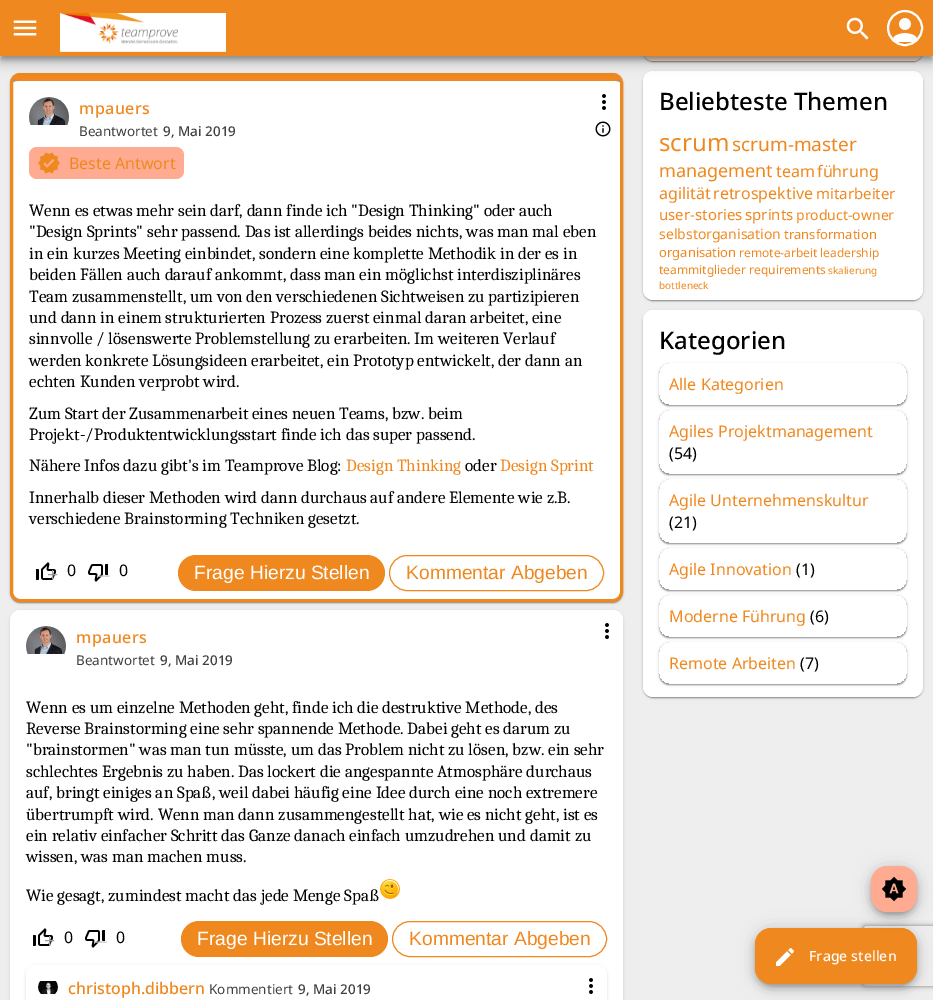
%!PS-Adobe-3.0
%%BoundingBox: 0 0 933 1000
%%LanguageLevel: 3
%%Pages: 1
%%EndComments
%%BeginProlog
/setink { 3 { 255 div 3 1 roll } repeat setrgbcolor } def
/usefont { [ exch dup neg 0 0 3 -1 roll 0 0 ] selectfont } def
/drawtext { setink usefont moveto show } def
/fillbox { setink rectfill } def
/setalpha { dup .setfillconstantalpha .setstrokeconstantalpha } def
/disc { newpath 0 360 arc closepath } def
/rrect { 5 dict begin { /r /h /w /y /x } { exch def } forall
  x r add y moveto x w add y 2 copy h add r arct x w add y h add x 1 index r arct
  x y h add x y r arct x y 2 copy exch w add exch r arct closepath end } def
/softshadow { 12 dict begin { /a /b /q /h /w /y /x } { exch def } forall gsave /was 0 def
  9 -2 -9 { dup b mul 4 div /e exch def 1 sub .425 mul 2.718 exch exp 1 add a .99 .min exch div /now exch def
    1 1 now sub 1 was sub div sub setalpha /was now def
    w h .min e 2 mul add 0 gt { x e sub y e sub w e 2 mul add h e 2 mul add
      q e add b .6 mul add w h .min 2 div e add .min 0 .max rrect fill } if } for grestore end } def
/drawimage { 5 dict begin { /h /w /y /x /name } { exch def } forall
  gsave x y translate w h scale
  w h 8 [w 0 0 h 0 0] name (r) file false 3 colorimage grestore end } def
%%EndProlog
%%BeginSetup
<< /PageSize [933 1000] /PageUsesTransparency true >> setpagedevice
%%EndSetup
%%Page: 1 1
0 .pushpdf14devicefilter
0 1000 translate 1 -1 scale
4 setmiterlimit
0 0 933 1000 238 238 238 fillbox
0 0 0 setink
10 74 613 529 10 1.5 0.12 softshadow
10 74 613 529 10 0.5 0.14 softshadow
11 76 611 527 9 0.5 0.2 softshadow
255 255 255 setink
20 81 moveto 613 81 lineto 617 81 620 82 620 83 curveto 620 592 lineto 620 596 617 599 613 599 curveto 20 599 lineto 16 599 13 596 13 592 curveto 13 83 lineto 13 82 16 81 20 81 curveto closepath fill
238 136 31 setink
3 setlinewidth
11.5 74.5 610 526 8.5 rrect stroke
15 76 603 5 238 136 31 fillbox
(assets/img1.rgb) 602 94 4 16 drawimage
(assets/img2.rgb) 29 97 40 28 drawimage
/NotoSans-Medium 16 usefont
79 114 moveto 0.5 0 (mpauers) ashow
(Beantwortet) 79 136 /NotoSans-Regular 13.5 64 64 64 drawtext
(9, Mai 2019) 163 136 /NotoSans-Medium 13.5 64 64 64 drawtext
(assets/img3.rgb) 595 121 16 16 drawimage
255 171 145 setink
29 147 155 32 8 rrect fill
(assets/img4.rgb) 38 152 22 22 drawimage
(Beste Antwort) 69 169 /NotoSans-Regular 16 238 136 31 drawtext
(Wenn es etwas mehr sein darf, dann finde ich "Design Thinking" oder auch) 29 216 /Caladea-Regular 17.1 0 0 0 drawtext
("Design Sprints" sehr passend. Das ist allerdings beides nichts, was man mal eben) 29 237 /Caladea-Regular 17.1 0 0 0 drawtext
(in ein kurzes Meeting einbindet, sondern eine komplette Methodik in der es in) 29 259 /Caladea-Regular 17.1 0 0 0 drawtext
(beiden Fällen auch darauf ankommt, dass man ein möglichst interdisziplinäres) 29 280 /Caladea-Regular 17.1 0 0 0 drawtext
(Team zusammenstellt, um von den verschiedenen Sichtweisen zu partizipieren) 29 302 /Caladea-Regular 17.1 0 0 0 drawtext
(und dann in einem strukturierten Prozess zuerst einmal daran arbeitet, eine) 29 323 /Caladea-Regular 17.1 0 0 0 drawtext
(sinnvolle / lösenswerte Problemstellung zu erarbeiten. Im weiteren Verlauf) 29 344 /Caladea-Regular 17.1 0 0 0 drawtext
(werden konkrete Lösungsideen erarbeitet, ein Prototyp entwickelt, der dann an) 29 366 /Caladea-Regular 17.1 0 0 0 drawtext
(echten Kunden verprobt wird.) 29 387 /Caladea-Regular 17.1 0 0 0 drawtext
(Zum Start der Zusammenarbeit eines neuen Teams, bzw. beim) 29 419 /Caladea-Regular 17.1 0 0 0 drawtext
(Projekt-/Produktentwicklungsstart finde ich das super passend.) 29 440 /Caladea-Regular 17.1 0 0 0 drawtext
(Nähere Infos dazu gibt's im Teamprove Blog:) 29 471 /Caladea-Regular 17.1 0 0 0 drawtext
(Design Thinking) 346 471 /Caladea-Regular 17.1 238 136 31 drawtext
(oder) 465 471 /Caladea-Regular 17.1 0 0 0 drawtext
(Design Sprint) 500 471 /Caladea-Regular 17.1 238 136 31 drawtext
(Innerhalb dieser Methoden wird dann durchaus auf andere Elemente wie z.B.) 29 503 /Caladea-Regular 17.1 0 0 0 drawtext
(verschiedene Brainstorming Techniken gesetzt.) 29 524 /Caladea-Regular 17.1 0 0 0 drawtext
(assets/img5.rgb) 36 562 20 18 drawimage
(0) 67 576 /NotoSans-Regular 16 0 0 0 drawtext
(assets/img6.rgb) 88 564 20 18 drawimage
(0) 119 576 /NotoSans-Regular 16 0 0 0 drawtext
(+) 47 581 /LiberationSans-Regular 19.25 160 160 160 drawtext
(–) 99 581 /LiberationSans-Regular 19.25 195 195 195 drawtext
238 136 31 setink
178 555 207 36 18 rrect fill
(Frage Hierzu Stellen) 194 579 /LiberationSans-Regular 19.25 255 255 255 drawtext
238 136 31 setink
1 setlinewidth
389.5 555.5 214 35 17.5 rrect stroke
(Kommentar Abgeben) 406 579 /LiberationSans-Regular 19.25 238 136 31 drawtext
0 0 0 setink
10 611 613 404 10 1.5 0.12 softshadow
255 255 255 setink
10 610 613 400 10 rrect fill
(assets/img1.rgb) 605 623 4 16 drawimage
(assets/img7.rgb) 26 626 40 28 drawimage
/NotoSans-Medium 16 usefont
238 136 31 setink
76 643 moveto 0.5 0 (mpauers) ashow
(Beantwortet) 76 665 /NotoSans-Regular 13.5 64 64 64 drawtext
(9, Mai 2019) 160 665 /NotoSans-Medium 13.5 64 64 64 drawtext
(Wenn es um einzelne Methoden geht, finde ich die destruktive Methode, des) 26 713 /Caladea-Regular 17.1 0 0 0 drawtext
(Reverse Brainstorming eine sehr spannende Methode. Dabei geht es darum zu) 26 734 /Caladea-Regular 17.1 0 0 0 drawtext
("brainstormen" was man tun müsste, um das Problem nicht zu lösen, bzw. ein sehr) 26 755 /Caladea-Regular 17.1 0 0 0 drawtext
(schlechtes Ergebnis zu haben. Das lockert die angespannte Atmosphäre durchaus) 26 777 /Caladea-Regular 17.1 0 0 0 drawtext
(auf, bringt einiges an Spaß, weil dabei häufig eine Idee durch eine noch extremere) 26 798 /Caladea-Regular 17.1 0 0 0 drawtext
(übertrumpft wird. Wenn man dann zusammengestellt hat, wie es nicht geht, ist es) 26 820 /Caladea-Regular 17.1 0 0 0 drawtext
(ein relativ einfacher Schritt das Ganze danach einfach umzudrehen und damit zu) 26 841 /Caladea-Regular 17.1 0 0 0 drawtext
(wissen, was man machen muss.) 26 862 /Caladea-Regular 17.1 0 0 0 drawtext
(Wie gesagt, zumindest macht das jede Menge Spaß) 26 901 /Caladea-Regular 17.1 0 0 0 drawtext
(assets/img8.rgb) 380 879 20 20 drawimage
(assets/img5.rgb) 33 928 20 18 drawimage
(0) 64 943 /NotoSans-Regular 16 0 0 0 drawtext
(assets/img6.rgb) 85 930 20 18 drawimage
(0) 116 943 /NotoSans-Regular 16 0 0 0 drawtext
(+) 44 947 /LiberationSans-Regular 19.25 160 160 160 drawtext
(–) 96 947 /LiberationSans-Regular 19.25 195 195 195 drawtext
238 136 31 setink
181 921 207 36 18 rrect fill
(Frage Hierzu Stellen) 197 945 /LiberationSans-Regular 19.25 255 255 255 drawtext
238 136 31 setink
392.5 921.5 214 35 17.5 rrect stroke
(Kommentar Abgeben) 409 945 /LiberationSans-Regular 19.25 238 136 31 drawtext
0 0 0 setink
26 966 581 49 10 1.5 0.12 softshadow
255 255 255 setink
26 965 581 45 10 rrect fill
(assets/img9.rgb) 38 981 20 13 drawimage
(christoph.dibbern) 68 994 /NotoSans-Medium 16 238 136 31 drawtext
(Kommentiert) 209 994 /NotoSans-Regular 13.5 64 64 64 drawtext
(9, Mai 2019) 298 994 /NotoSans-Medium 13.5 64 64 64 drawtext
(assets/img1.rgb) 589 978 4 16 drawimage
0 0 0 setink
643 -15 280 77 10 1.5 0.12 softshadow
643 -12 280 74 10 0.5 0.14 softshadow
644 -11 278 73 9 0.5 0.2 softshadow
255 221 193 setink
643 -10 280 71 10 rrect fill
0 0 0 setink
643 72 280 229 10 1.5 0.12 softshadow
643 72 280 229 10 0.5 0.14 softshadow
644 74 278 227 9 0.5 0.2 softshadow
255 255 255 setink
643 71 280 229 10 rrect fill
(Beliebteste Themen) 659 110 /NotoSans-Medium 24 0 0 0 drawtext
(scrum) 659 151 /NotoSans-Regular 24 238 136 31 drawtext
(scrum-master) 732 151 /NotoSans-Regular 19 238 136 31 drawtext
(management) 659 177 /NotoSans-Regular 18 238 136 31 drawtext
(team) 776 177 /NotoSans-Regular 16 238 136 31 drawtext
(führung) 817 177 /NotoSans-Regular 16 238 136 31 drawtext
(agilität) 659 199 /NotoSans-Regular 16 238 136 31 drawtext
(retrospektive) 713 199 /NotoSans-Regular 16 238 136 31 drawtext
(mitarbeiter) 816 199 /NotoSans-Regular 15 238 136 31 drawtext
(user-stories) 659 220 /NotoSans-Regular 15 238 136 31 drawtext
(sprints) 745 220 /NotoSans-Regular 15 238 136 31 drawtext
(product-owner) 796 220 /NotoSans-Regular 14 238 136 31 drawtext
(selbstorganisation) 659 239 /NotoSans-Regular 14 238 136 31 drawtext
(transformation) 784 239 /NotoSans-Regular 13 238 136 31 drawtext
(organisation) 659 257 /NotoSans-Regular 13 238 136 31 drawtext
(remote-arbeit) 739 257 /NotoSans-Regular 12 238 136 31 drawtext
(leadership) 820 257 /NotoSans-Regular 12 238 136 31 drawtext
(teammitglieder) 659 274 /NotoSans-Regular 12 238 136 31 drawtext
(requirements) 749 274 /NotoSans-Regular 12 238 136 31 drawtext
(skalierung) 828 274 /NotoSans-Regular 10 238 136 31 drawtext
(bottleneck) 659 289 /NotoSans-Regular 10 238 136 31 drawtext
0 0 0 setink
643 311 280 387 10 1.5 0.12 softshadow
643 311 280 387 10 0.5 0.14 softshadow
644 313 278 385 9 0.5 0.2 softshadow
255 255 255 setink
643 310 280 387 10 rrect fill
(Kategorien) 659 349 /NotoSans-Medium 24 0 0 0 drawtext
gsave
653 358 moveto 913 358 lineto 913 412 lineto 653 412 lineto closepath 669 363 moveto 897 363 lineto 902.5 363 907 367.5 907 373 curveto 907 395 lineto 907 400.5 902.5 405 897 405 curveto 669 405 lineto 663.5 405 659 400.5 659 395 curveto 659 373 lineto 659 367.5 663.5 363 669 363 curveto closepath eoclip newpath
659 364 248 42 10 1.5 0.12 softshadow
grestore
gsave
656 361 moveto 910 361 lineto 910 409 lineto 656 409 lineto closepath 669 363 moveto 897 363 lineto 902.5 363 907 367.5 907 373 curveto 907 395 lineto 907 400.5 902.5 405 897 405 curveto 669 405 lineto 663.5 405 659 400.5 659 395 curveto 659 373 lineto 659 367.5 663.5 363 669 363 curveto closepath eoclip newpath
659 364 248 42 10 0.5 0.14 softshadow
grestore
gsave
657 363 moveto 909 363 lineto 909 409 lineto 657 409 lineto closepath 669 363 moveto 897 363 lineto 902.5 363 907 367.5 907 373 curveto 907 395 lineto 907 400.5 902.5 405 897 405 curveto 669 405 lineto 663.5 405 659 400.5 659 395 curveto 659 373 lineto 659 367.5 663.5 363 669 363 curveto closepath eoclip newpath
660 366 246 40 9 0.5 0.2 softshadow
grestore
(Alle Kategorien) 669 390 /NotoSans-Regular 16 238 136 31 drawtext
gsave
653 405 moveto 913 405 lineto 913 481 lineto 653 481 lineto closepath 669 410 moveto 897 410 lineto 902.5 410 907 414.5 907 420 curveto 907 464 lineto 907 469.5 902.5 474 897 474 curveto 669 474 lineto 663.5 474 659 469.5 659 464 curveto 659 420 lineto 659 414.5 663.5 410 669 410 curveto closepath eoclip newpath
0 0 0 setink
659 411 248 64 10 1.5 0.12 softshadow
grestore
gsave
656 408 moveto 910 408 lineto 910 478 lineto 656 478 lineto closepath 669 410 moveto 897 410 lineto 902.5 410 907 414.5 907 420 curveto 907 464 lineto 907 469.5 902.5 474 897 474 curveto 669 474 lineto 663.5 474 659 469.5 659 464 curveto 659 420 lineto 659 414.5 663.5 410 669 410 curveto closepath eoclip newpath
0 0 0 setink
659 411 248 64 10 0.5 0.14 softshadow
grestore
gsave
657 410 moveto 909 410 lineto 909 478 lineto 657 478 lineto closepath 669 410 moveto 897 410 lineto 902.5 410 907 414.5 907 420 curveto 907 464 lineto 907 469.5 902.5 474 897 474 curveto 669 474 lineto 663.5 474 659 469.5 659 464 curveto 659 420 lineto 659 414.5 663.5 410 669 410 curveto closepath eoclip newpath
0 0 0 setink
660 413 246 62 9 0.5 0.2 softshadow
grestore
(Agiles Projektmanagement) 669 437 /NotoSans-Regular 16 238 136 31 drawtext
(\(54\)) 669 459 /NotoSans-Regular 16 0 0 0 drawtext
gsave
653 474 moveto 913 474 lineto 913 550 lineto 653 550 lineto closepath 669 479 moveto 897 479 lineto 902.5 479 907 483.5 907 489 curveto 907 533 lineto 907 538.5 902.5 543 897 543 curveto 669 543 lineto 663.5 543 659 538.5 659 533 curveto 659 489 lineto 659 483.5 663.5 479 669 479 curveto closepath eoclip newpath
659 480 248 64 10 1.5 0.12 softshadow
grestore
gsave
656 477 moveto 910 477 lineto 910 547 lineto 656 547 lineto closepath 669 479 moveto 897 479 lineto 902.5 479 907 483.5 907 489 curveto 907 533 lineto 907 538.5 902.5 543 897 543 curveto 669 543 lineto 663.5 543 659 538.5 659 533 curveto 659 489 lineto 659 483.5 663.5 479 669 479 curveto closepath eoclip newpath
659 480 248 64 10 0.5 0.14 softshadow
grestore
gsave
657 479 moveto 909 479 lineto 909 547 lineto 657 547 lineto closepath 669 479 moveto 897 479 lineto 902.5 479 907 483.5 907 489 curveto 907 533 lineto 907 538.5 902.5 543 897 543 curveto 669 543 lineto 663.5 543 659 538.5 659 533 curveto 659 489 lineto 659 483.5 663.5 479 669 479 curveto closepath eoclip newpath
660 482 246 62 9 0.5 0.2 softshadow
grestore
(Agile Unternehmenskultur) 669 506 /NotoSans-Regular 16 238 136 31 drawtext
(\(21\)) 669 528 /NotoSans-Regular 16 0 0 0 drawtext
gsave
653 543 moveto 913 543 lineto 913 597 lineto 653 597 lineto closepath 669 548 moveto 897 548 lineto 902.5 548 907 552.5 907 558 curveto 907 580 lineto 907 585.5 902.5 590 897 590 curveto 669 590 lineto 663.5 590 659 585.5 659 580 curveto 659 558 lineto 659 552.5 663.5 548 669 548 curveto closepath eoclip newpath
659 549 248 42 10 1.5 0.12 softshadow
grestore
gsave
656 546 moveto 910 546 lineto 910 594 lineto 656 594 lineto closepath 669 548 moveto 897 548 lineto 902.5 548 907 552.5 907 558 curveto 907 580 lineto 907 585.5 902.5 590 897 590 curveto 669 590 lineto 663.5 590 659 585.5 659 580 curveto 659 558 lineto 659 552.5 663.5 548 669 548 curveto closepath eoclip newpath
659 549 248 42 10 0.5 0.14 softshadow
grestore
gsave
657 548 moveto 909 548 lineto 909 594 lineto 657 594 lineto closepath 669 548 moveto 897 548 lineto 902.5 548 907 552.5 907 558 curveto 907 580 lineto 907 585.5 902.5 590 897 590 curveto 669 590 lineto 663.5 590 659 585.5 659 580 curveto 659 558 lineto 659 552.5 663.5 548 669 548 curveto closepath eoclip newpath
660 551 246 40 9 0.5 0.2 softshadow
grestore
(Agile Innovation) 669 575 /NotoSans-Regular 16 238 136 31 drawtext
(\(1\)) 796 575 /NotoSans-Regular 16 0 0 0 drawtext
gsave
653 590 moveto 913 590 lineto 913 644 lineto 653 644 lineto closepath 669 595 moveto 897 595 lineto 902.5 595 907 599.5 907 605 curveto 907 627 lineto 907 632.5 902.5 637 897 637 curveto 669 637 lineto 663.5 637 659 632.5 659 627 curveto 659 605 lineto 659 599.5 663.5 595 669 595 curveto closepath eoclip newpath
659 596 248 42 10 1.5 0.12 softshadow
grestore
gsave
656 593 moveto 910 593 lineto 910 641 lineto 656 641 lineto closepath 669 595 moveto 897 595 lineto 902.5 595 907 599.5 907 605 curveto 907 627 lineto 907 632.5 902.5 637 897 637 curveto 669 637 lineto 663.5 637 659 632.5 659 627 curveto 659 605 lineto 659 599.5 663.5 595 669 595 curveto closepath eoclip newpath
659 596 248 42 10 0.5 0.14 softshadow
grestore
gsave
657 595 moveto 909 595 lineto 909 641 lineto 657 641 lineto closepath 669 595 moveto 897 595 lineto 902.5 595 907 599.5 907 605 curveto 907 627 lineto 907 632.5 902.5 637 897 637 curveto 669 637 lineto 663.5 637 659 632.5 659 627 curveto 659 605 lineto 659 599.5 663.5 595 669 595 curveto closepath eoclip newpath
660 598 246 40 9 0.5 0.2 softshadow
grestore
(Moderne Führung) 669 622 /NotoSans-Regular 16 238 136 31 drawtext
(\(6\)) 810 622 /NotoSans-Regular 16 0 0 0 drawtext
gsave
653 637 moveto 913 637 lineto 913 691 lineto 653 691 lineto closepath 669 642 moveto 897 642 lineto 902.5 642 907 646.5 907 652 curveto 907 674 lineto 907 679.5 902.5 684 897 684 curveto 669 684 lineto 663.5 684 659 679.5 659 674 curveto 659 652 lineto 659 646.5 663.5 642 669 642 curveto closepath eoclip newpath
659 643 248 42 10 1.5 0.12 softshadow
grestore
gsave
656 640 moveto 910 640 lineto 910 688 lineto 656 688 lineto closepath 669 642 moveto 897 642 lineto 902.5 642 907 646.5 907 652 curveto 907 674 lineto 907 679.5 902.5 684 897 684 curveto 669 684 lineto 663.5 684 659 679.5 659 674 curveto 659 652 lineto 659 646.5 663.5 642 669 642 curveto closepath eoclip newpath
659 643 248 42 10 0.5 0.14 softshadow
grestore
gsave
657 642 moveto 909 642 lineto 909 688 lineto 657 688 lineto closepath 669 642 moveto 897 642 lineto 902.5 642 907 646.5 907 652 curveto 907 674 lineto 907 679.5 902.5 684 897 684 curveto 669 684 lineto 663.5 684 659 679.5 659 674 curveto 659 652 lineto 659 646.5 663.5 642 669 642 curveto closepath eoclip newpath
660 645 246 40 9 0.5 0.2 softshadow
grestore
(Remote Arbeiten) 669 669 /NotoSans-Regular 16 238 136 31 drawtext
(\(7\)) 800 669 /NotoSans-Regular 16 0 0 0 drawtext
0 10 933 56 0 5 0.12 softshadow
0 5 933 56 0 2.5 0.14 softshadow
1 5 931 54 0 2 0.2 softshadow
0 0 933 56 238 136 31 fillbox
(assets/img10.rgb) 60 13 166 39 drawimage
(assets/img11.rgb) 13 20 24 16 drawimage
(assets/img12.rgb) 846 17 23 23 drawimage
255 255 255 setink
2 setlinewidth
905 28 17 disc stroke
(assets/img13.rgb) 893 18 24 24 drawimage
0 0 0 setink
755 929 162 56 16 9 0.12 softshadow
755 934 162 56 16 5 0.14 softshadow
756 932 160 54 15 2.5 0.2 softshadow
gsave
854 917 moveto 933 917 lineto 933 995 lineto 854 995 lineto closepath 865 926 moveto 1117 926 lineto 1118 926 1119 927 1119 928 curveto 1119 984 lineto 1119 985 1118 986 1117 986 curveto 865 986 lineto 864 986 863 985 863 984 curveto 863 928 lineto 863 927 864 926 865 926 curveto closepath eoclip newpath
128 128 128 setink
863 926 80 60 2 2.5 1 softshadow
grestore
238 136 31 setink
755 928 162 56 16 rrect fill
0 0 0 setink
871 867 46 46 16 9 0.12 softshadow
871 872 46 46 16 5 0.14 softshadow
872 870 44 44 15 2.5 0.2 softshadow
255 171 145 setink
871 866 46 46 16 rrect fill
(assets/img14.rgb) 881 876 26 26 drawimage
(assets/img15.rgb) 776 948 18 18 drawimage
/NotoSans-Medium 14 usefont
255 255 255 setink
809 961 moveto 0.1 0 (Frage stellen) ashow
.poppdf14devicefilter showpage
%%EOF
